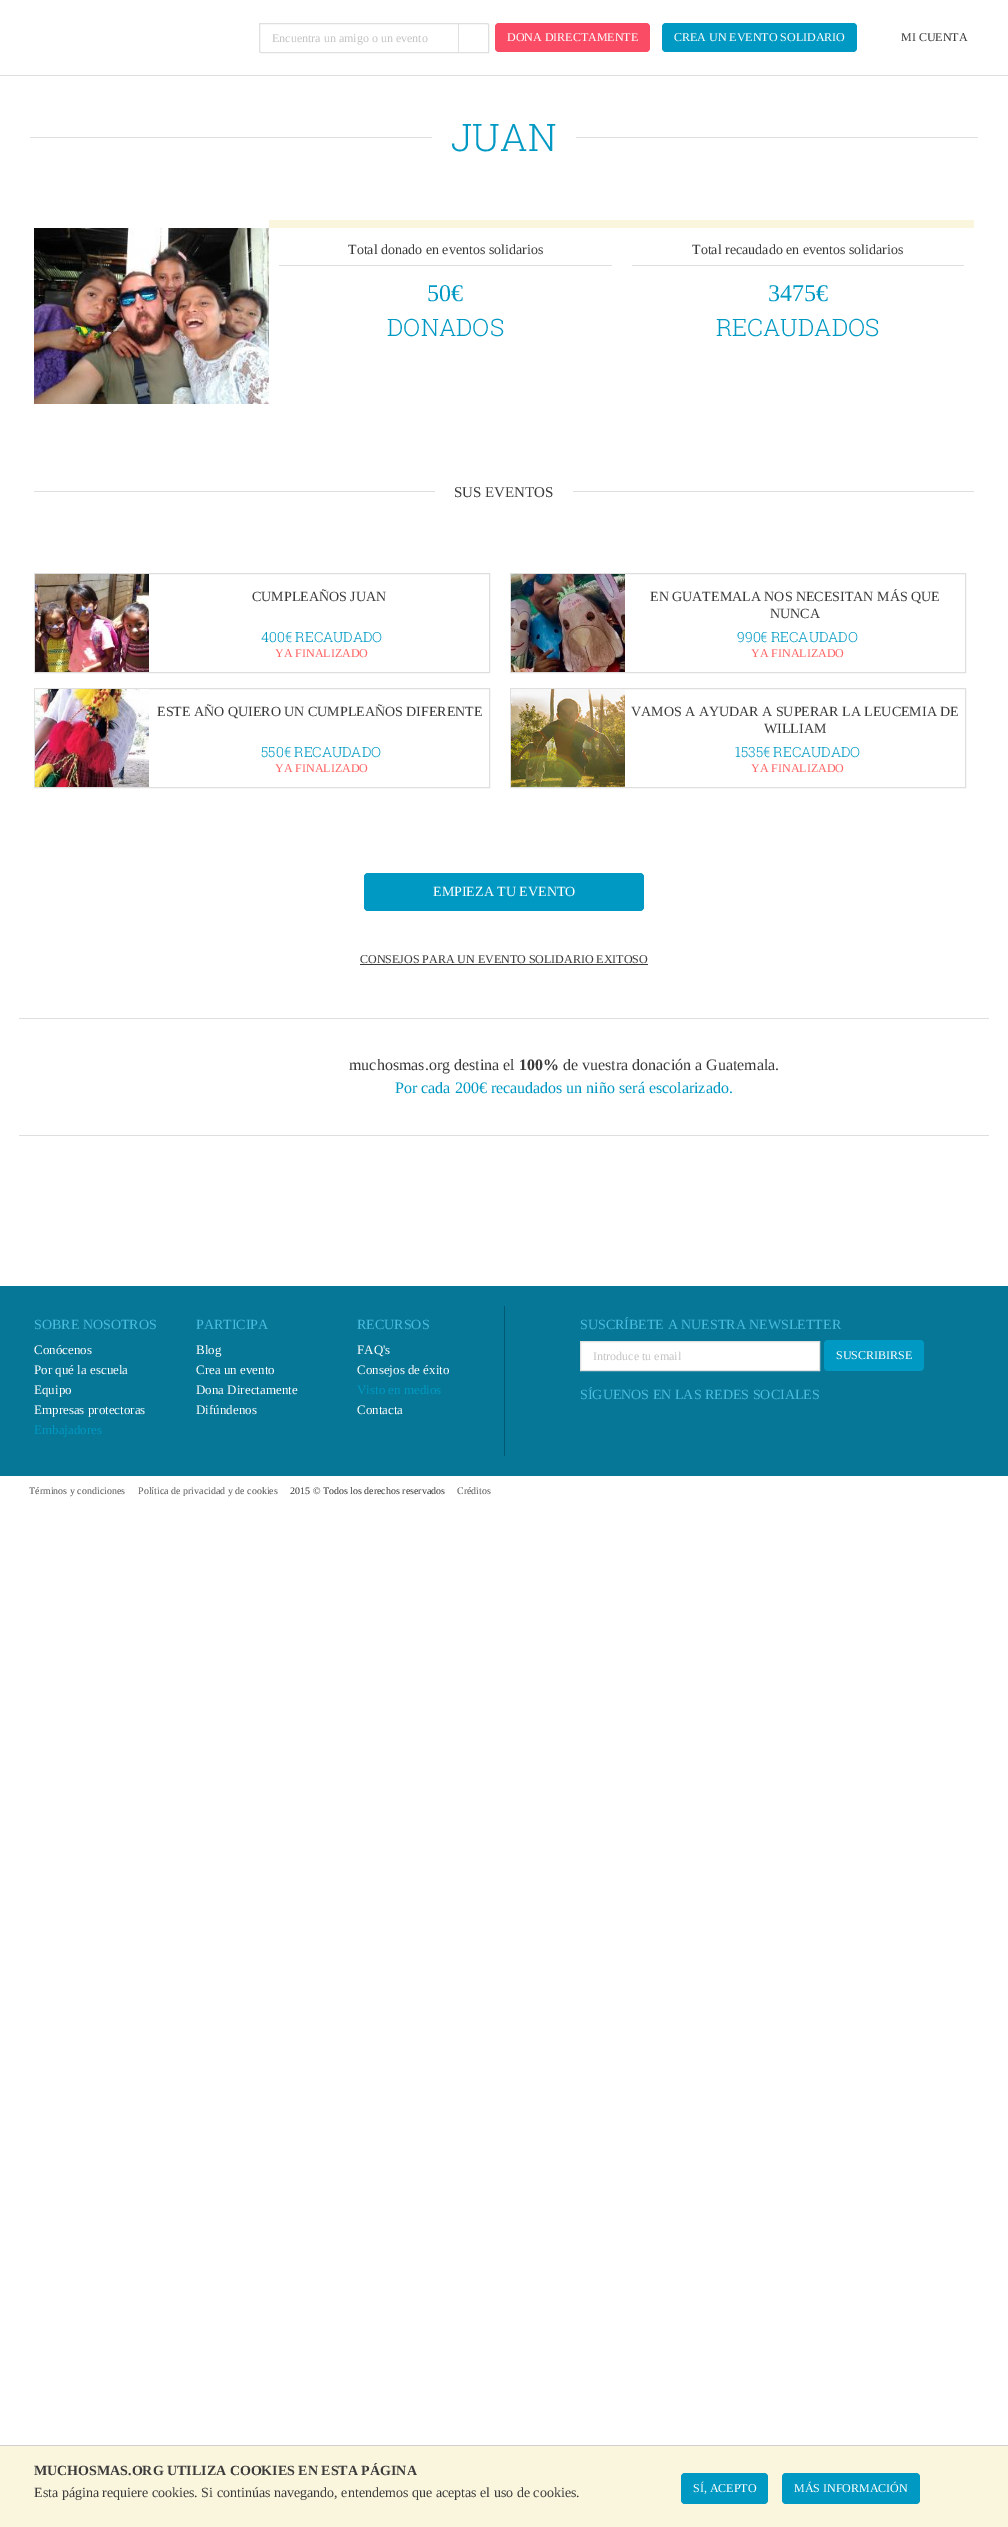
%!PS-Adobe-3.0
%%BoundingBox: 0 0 1008 2527
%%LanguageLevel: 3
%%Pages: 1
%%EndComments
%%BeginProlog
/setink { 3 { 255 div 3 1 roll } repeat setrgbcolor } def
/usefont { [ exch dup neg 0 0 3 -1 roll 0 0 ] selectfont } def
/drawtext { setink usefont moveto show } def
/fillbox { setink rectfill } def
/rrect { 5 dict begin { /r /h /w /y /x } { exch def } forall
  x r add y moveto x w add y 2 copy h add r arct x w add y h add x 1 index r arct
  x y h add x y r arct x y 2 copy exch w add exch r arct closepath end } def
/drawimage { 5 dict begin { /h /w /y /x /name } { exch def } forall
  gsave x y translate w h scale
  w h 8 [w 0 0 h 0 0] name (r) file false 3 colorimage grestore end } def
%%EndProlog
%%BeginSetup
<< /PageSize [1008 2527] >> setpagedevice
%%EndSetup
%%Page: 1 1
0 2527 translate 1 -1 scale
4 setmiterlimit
0 0 1008 2527 255 255 255 fillbox
0 75 1008 1 223 223 223 fillbox
224 224 224 setink
259.5 23.5 moveto 487 23.5 lineto 488 23.5 488.5 24 488.5 25 curveto 488.5 52.5 lineto 261 52.5 lineto 260 52.5 259.5 52 259.5 51 curveto closepath stroke
(Encuentra un amigo o un evento) 272 42 /LiberationSerif-Regular 12 195 195 195 drawtext
458 23 1 30 224 224 224 fillbox
250 76 101 setink
495 23 155 29 4 rrect fill
(DONA DIRECTAMENTE) 507 41 /LiberationSerif-Regular 12 255 255 255 drawtext
0 153 195 setink
662 23 195 29 4 rrect fill
(CREA UN EVENTO SOLIDARIO) 674 41 /LiberationSerif-Regular 12 255 255 255 drawtext
(MI CUENTA) 901 41 /LiberationSerif-Regular 12 60 60 60 drawtext
30 137 948 1 223 223 223 fillbox
432 137 144 1 255 255 255 fillbox
(JUAN) 451 151 /RobotoSlab-Light 38 0 153 195 drawtext
269 220 705 8 250 245 221 fillbox
(assets/img1.rgb) 34 228 235 176 drawimage
279 265 333 1 223 223 223 fillbox
(Total donado en eventos solidarios) 348 254 /LiberationSerif-Regular 14 60 60 60 drawtext
(50€) 427 301 /LiberationSerif-Regular 24 0 153 195 drawtext
(DONADOS) 387 336 /RobotoSlab-Light 24 0 153 195 drawtext
632 265 332 1 223 223 223 fillbox
(Total recaudado en eventos solidarios) 692 254 /LiberationSerif-Regular 14 60 60 60 drawtext
(3475€) 768 301 /LiberationSerif-Regular 24 0 153 195 drawtext
(RECAUDADOS) 716 336 /RobotoSlab-Light 24 0 153 195 drawtext
34 491 940 1 223 223 223 fillbox
435 491 138 1 255 255 255 fillbox
(SUS EVENTOS) 454 497 /LiberationSerif-Regular 15 60 60 60 drawtext
223 223 223 setink
34.5 573.5 455 99 rectstroke
(assets/img2.rgb) 35 574 114 98 drawimage
(CUMPLEAÑOS JUAN) 252 601 /LiberationSerif-Regular 14 60 60 60 drawtext
(400€ RECAUDADO) 261 642 /RobotoSlab-Light 14 0 153 195 drawtext
(YA FINALIZADO) 275 657 /LiberationSerif-Regular 12 255 102 102 drawtext
223 223 223 setink
510.5 573.5 455 99 rectstroke
(assets/img3.rgb) 511 574 114 98 drawimage
(EN GUATEMALA NOS NECESITAN MÁS QUE) 650 601 /LiberationSerif-Regular 14 60 60 60 drawtext
(NUNCA) 770 618 /LiberationSerif-Regular 14 60 60 60 drawtext
(990€ RECAUDADO) 737 642 /RobotoSlab-Light 14 0 153 195 drawtext
(YA FINALIZADO) 751 657 /LiberationSerif-Regular 12 255 102 102 drawtext
223 223 223 setink
34.5 688.5 455 99 rectstroke
(assets/img4.rgb) 35 689 114 98 drawimage
(ESTE AÑO QUIERO UN CUMPLEAÑOS DIFERENTE) 157 716 /LiberationSerif-Regular 14 60 60 60 drawtext
(550€ RECAUDADO) 261 757 /RobotoSlab-Light 14 0 153 195 drawtext
(YA FINALIZADO) 275 772 /LiberationSerif-Regular 12 255 102 102 drawtext
223 223 223 setink
510.5 688.5 455 99 rectstroke
(assets/img5.rgb) 511 689 114 98 drawimage
(VAMOS A AYUDAR A SUPERAR LA LEUCEMIA DE) 631 716 /LiberationSerif-Regular 14 60 60 60 drawtext
(WILLIAM) 764 733 /LiberationSerif-Regular 14 60 60 60 drawtext
(1535€ RECAUDADO) 735 757 /RobotoSlab-Light 14 0 153 195 drawtext
(YA FINALIZADO) 751 772 /LiberationSerif-Regular 12 255 102 102 drawtext
0 153 195 setink
364 873 280 38 4 rrect fill
(EMPIEZA TU EVENTO) 433 896 /LiberationSerif-Regular 14 255 255 255 drawtext
(CONSEJOS PARA UN EVENTO SOLIDARIO EXITOSO) 360 963 /LiberationSerif-Regular 12 60 60 60 drawtext
360 964 288 1 60 60 60 fillbox
19 1018 970 1 223 223 223 fillbox
19 1135 970 1 223 223 223 fillbox
(muchosmas.org destina el) 349 1070 /LiberationSerif-Regular 16 60 60 60 drawtext
(100%) 519 1070 /LiberationSerif-Bold 16 60 60 60 drawtext
(de vuestra donación a Guatemala.) 563 1070 /LiberationSerif-Regular 16 60 60 60 drawtext
(Por cada 200€ recaudados un niño será escolarizado.) 395 1093 /LiberationSerif-Regular 16 0 153 195 drawtext
0 1286 1008 190 7 119 151 fillbox
(SOBRE NOSOTROS) 34 1329 /LiberationSerif-Regular 14 71 189 223 drawtext
(Conócenos) 34 1354 /LiberationSerif-Regular 13 255 255 255 drawtext
(Por qué la escuela) 34 1374 /LiberationSerif-Regular 13 255 255 255 drawtext
(Equipo) 34 1394 /LiberationSerif-Regular 13 255 255 255 drawtext
(Empresas protectoras) 34 1414 /LiberationSerif-Regular 13 255 255 255 drawtext
(Embajadores) 34 1434 /LiberationSerif-Regular 13 0 153 195 drawtext
(PARTICIPA) 196 1329 /LiberationSerif-Regular 14 71 189 223 drawtext
(Blog) 196 1354 /LiberationSerif-Regular 13 255 255 255 drawtext
(Crea un evento) 196 1374 /LiberationSerif-Regular 13 255 255 255 drawtext
(Dona Directamente) 196 1394 /LiberationSerif-Regular 13 255 255 255 drawtext
(Difúndenos) 196 1414 /LiberationSerif-Regular 13 255 255 255 drawtext
(RECURSOS) 357 1329 /LiberationSerif-Regular 14 71 189 223 drawtext
(FAQ's) 357 1354 /LiberationSerif-Regular 13 255 255 255 drawtext
(Consejos de éxito) 357 1374 /LiberationSerif-Regular 13 255 255 255 drawtext
(Visto en medios) 357 1394 /LiberationSerif-Regular 13 0 153 195 drawtext
(Contacta) 357 1414 /LiberationSerif-Regular 13 255 255 255 drawtext
504 1306 1 150 0 89 115 fillbox
(SUSCRÍBETE A NUESTRA NEWSLETTER) 580 1329 /LiberationSerif-Regular 14 71 189 223 drawtext
255 255 255 setink
580.5 1341.5 moveto 819.5 1341.5 lineto 819.5 1370.5 lineto 580.5 1370.5 lineto closepath gsave fill grestore
224 224 224 setink
stroke
(Introduce tu email) 593 1360 /LiberationSerif-Regular 12 195 195 195 drawtext
0 153 195 setink
824 1340 100 31 4 rrect fill
(SUSCRIBIRSE) 836 1359 /LiberationSerif-Regular 12 255 255 255 drawtext
(SÍGUENOS EN LAS REDES SOCIALES) 580 1399 /LiberationSerif-Regular 14 71 189 223 drawtext
(Términos y condiciones) 29 1494 /LiberationSerif-Regular 10 84 84 84 drawtext
(Política de privacidad y de cookies) 138 1494 /LiberationSerif-Regular 10 84 84 84 drawtext
(2015 © Todos los derechos reservados) 290 1494 /LiberationSerif-Regular 10 51 51 51 drawtext
(Créditos) 457 1494 /LiberationSerif-Regular 10 84 84 84 drawtext
0 2446 1008 81 250 245 221 fillbox
0 2445 1008 1 209 209 209 fillbox
(MUCHOSMAS.ORG UTILIZA COOKIES EN ESTA PÁGINA) 34 2475 /LiberationSerif-Bold 14 60 60 60 drawtext
(Esta página requiere cookies. Si continúas navegando, entendemos que aceptas el uso de cookies.) 34 2497 /LiberationSerif-Regular 14 60 60 60 drawtext
0 153 195 setink
681 2473 87 31 4 rrect fill
(SÍ, ACEPTO) 693 2492 /LiberationSerif-Regular 12 255 255 255 drawtext
0 153 195 setink
782 2473 138 31 4 rrect fill
(MÁS INFORMACIÓN) 794 2492 /LiberationSerif-Regular 12 255 255 255 drawtext
showpage
%%EOF
